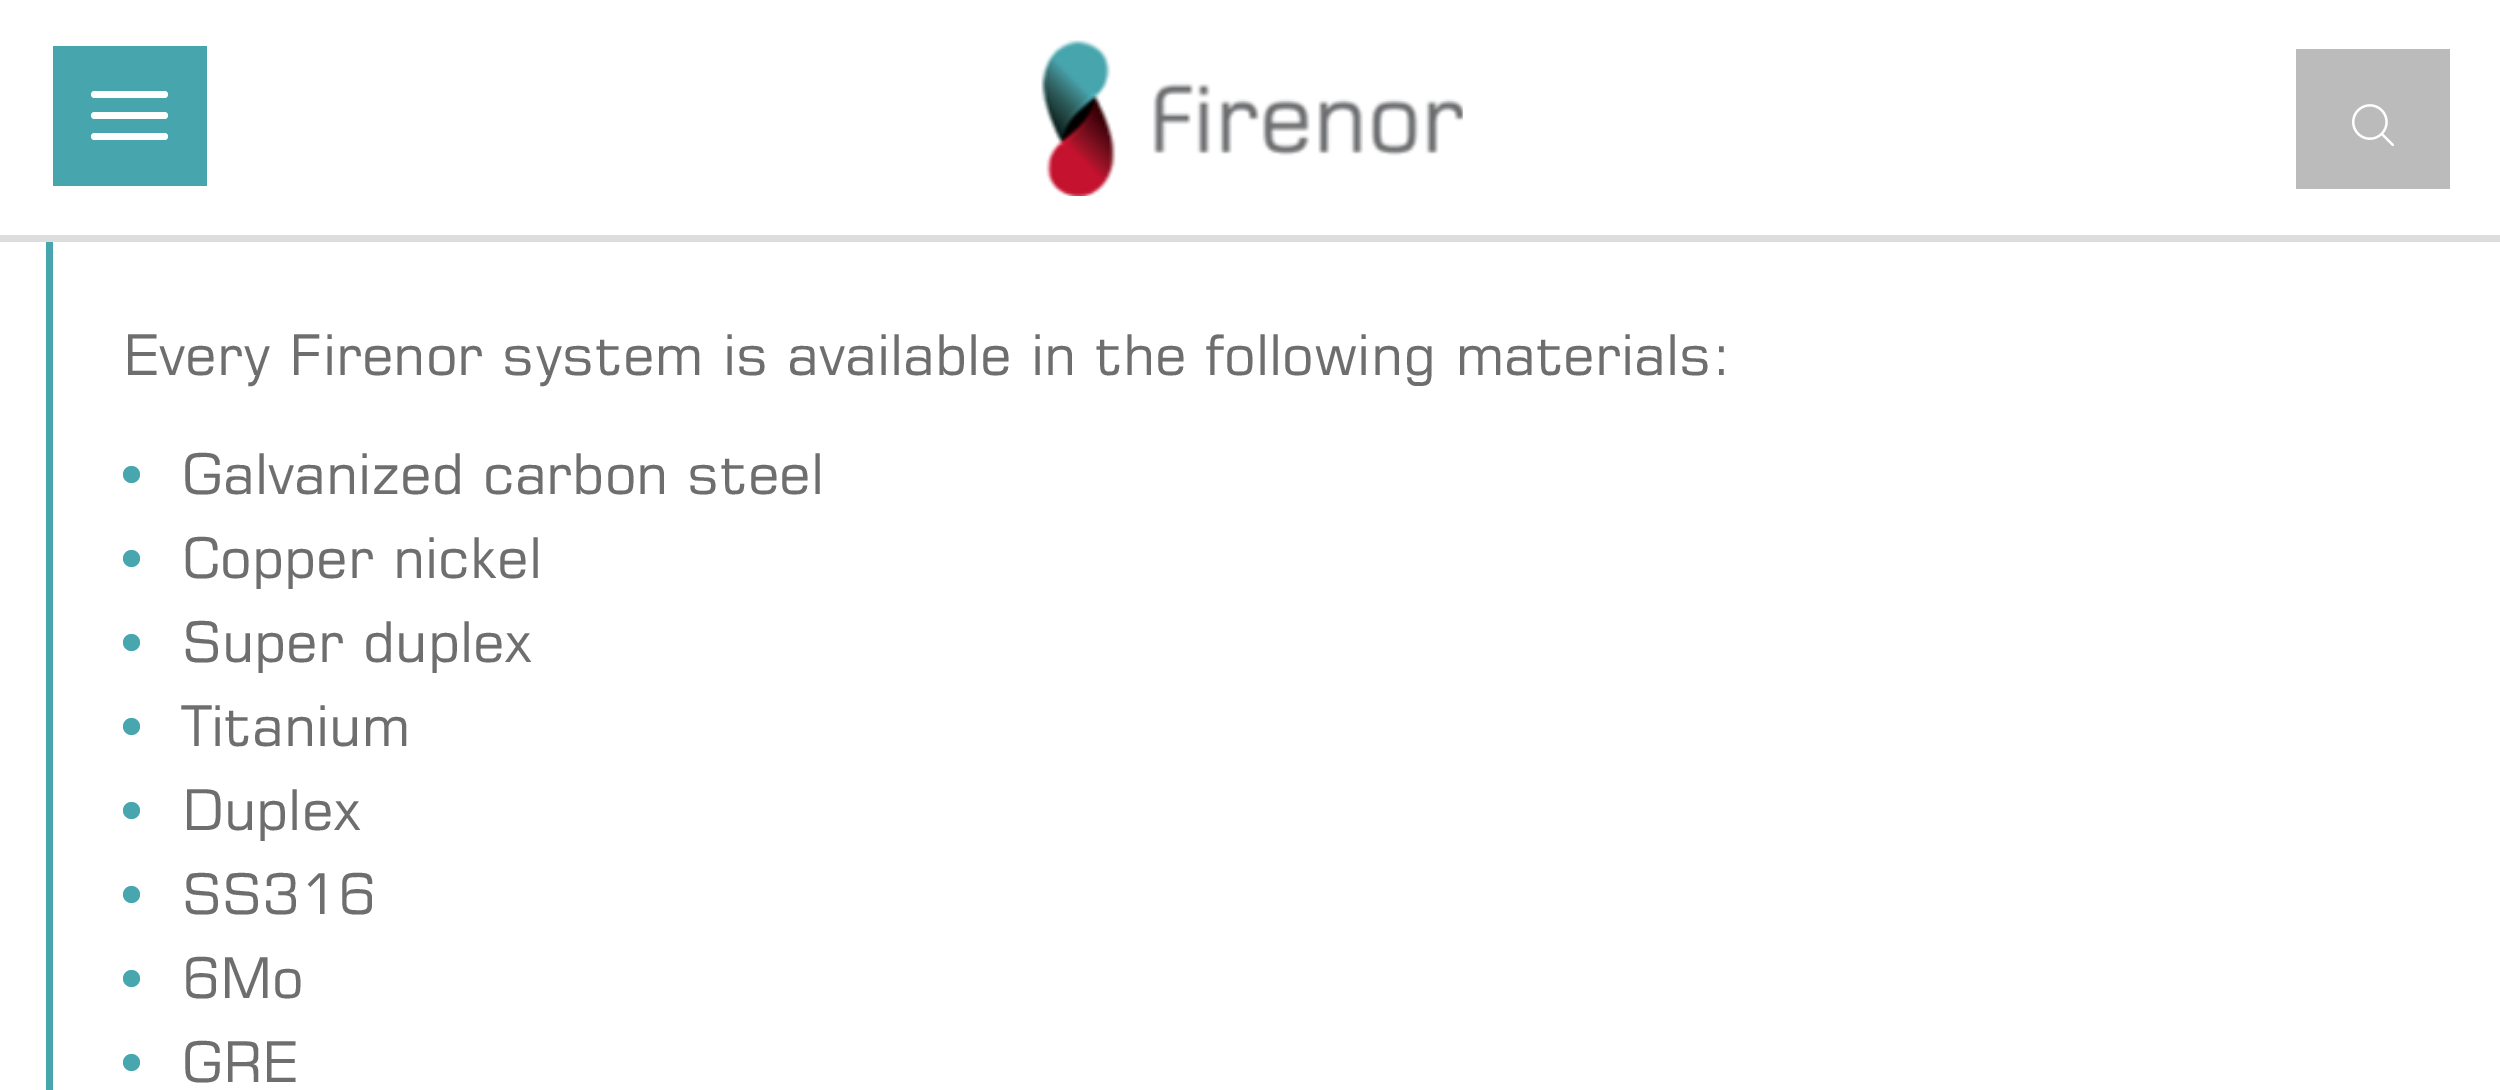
%!PS-Adobe-3.0
%%BoundingBox: 0 0 2500 1090
%%LanguageLevel: 3
%%Pages: 1
%%EndComments
%%BeginProlog
/setink { 3 { 255 div 3 1 roll } repeat setrgbcolor } def
/usefont { [ exch dup neg 0 0 3 -1 roll 0 0 ] selectfont } def
/drawtext { setink usefont moveto show } def
/fillbox { setink rectfill } def
/disc { newpath 0 360 arc closepath } def
/rrect { 5 dict begin { /r /h /w /y /x } { exch def } forall
  x r add y moveto x w add y 2 copy h add r arct x w add y h add x 1 index r arct
  x y h add x y r arct x y 2 copy exch w add exch r arct closepath end } def
/drawimage { 5 dict begin { /h /w /y /x /name } { exch def } forall
  gsave x y translate w h scale
  w h 8 [w 0 0 h 0 0] name (r) file false 3 colorimage grestore end } def
%%EndProlog
%%BeginSetup
<< /PageSize [2500 1090] >> setpagedevice
%%EndSetup
%%Page: 1 1
0 1090 translate 1 -1 scale
4 setmiterlimit
0 0 2500 1090 255 255 255 fillbox
0 235 2500 7 221 221 221 fillbox
(assets/img1.rgb) 1041 40 422 156 drawimage
53 46 154 140 71 165 174 fillbox
255 255 255 setink
91 91 77 7 3.5 rrect fill
91 112 77 7 3.5 rrect fill
91 133 77 7 3.5 rrect fill
2296 49 154 140 187 187 187 fillbox
(assets/img2.rgb) 2352 104 42 43 drawimage
46 242 7 848 71 165 174 fillbox
(Every Firenor system is available in the following materials:) 123 375 /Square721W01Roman-Regular 56 110 110 110 drawtext
71 166 174 setink
131.5 474.5 8.5 disc fill
(Galvanized carbon steel) 182 494 /Square721W01Roman-Regular 56 110 110 110 drawtext
71 166 174 setink
131.5 558.5 8.5 disc fill
(Copper nickel) 182 578 /Square721W01Roman-Regular 56 110 110 110 drawtext
71 166 174 setink
131.5 642.5 8.5 disc fill
(Super duplex) 182 662 /Square721W01Roman-Regular 56 110 110 110 drawtext
71 166 174 setink
131.5 726.5 8.5 disc fill
(Titanium) 182 746 /Square721W01Roman-Regular 56 110 110 110 drawtext
71 166 174 setink
131.5 810.5 8.5 disc fill
(Duplex) 182 830 /Square721W01Roman-Regular 56 110 110 110 drawtext
71 166 174 setink
131.5 894.5 8.5 disc fill
(SS316) 182 914 /Square721W01Roman-Regular 56 110 110 110 drawtext
71 166 174 setink
131.5 978.5 8.5 disc fill
(6Mo) 182 998 /Square721W01Roman-Regular 56 110 110 110 drawtext
71 166 174 setink
131.5 1062.5 8.5 disc fill
(GRE) 182 1082 /Square721W01Roman-Regular 56 110 110 110 drawtext
showpage
%%EOF
